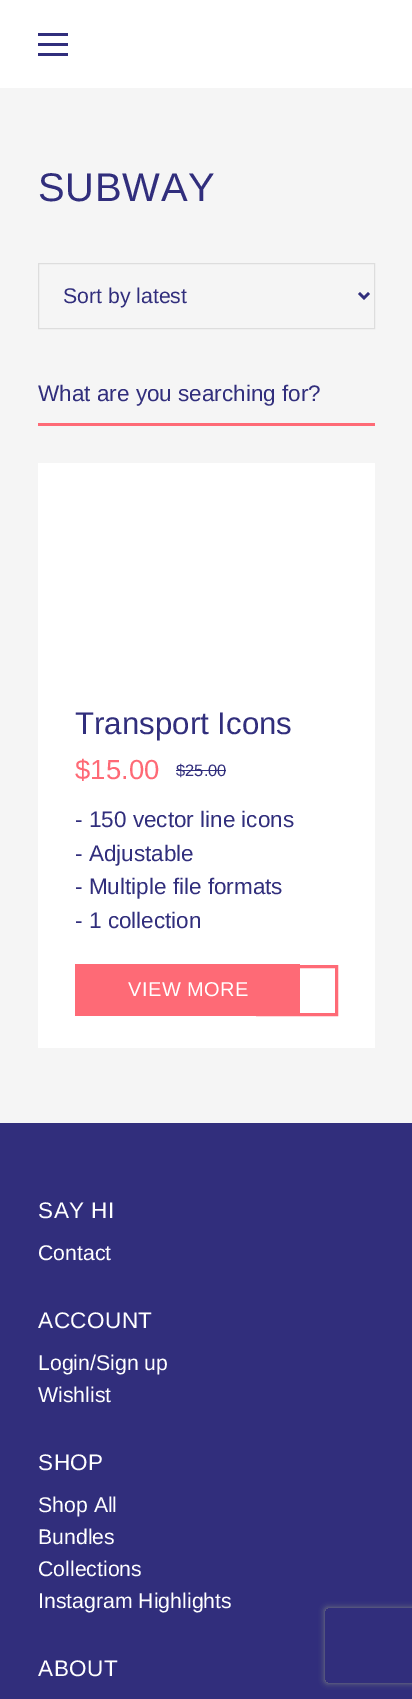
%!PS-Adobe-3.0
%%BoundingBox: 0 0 412 1699
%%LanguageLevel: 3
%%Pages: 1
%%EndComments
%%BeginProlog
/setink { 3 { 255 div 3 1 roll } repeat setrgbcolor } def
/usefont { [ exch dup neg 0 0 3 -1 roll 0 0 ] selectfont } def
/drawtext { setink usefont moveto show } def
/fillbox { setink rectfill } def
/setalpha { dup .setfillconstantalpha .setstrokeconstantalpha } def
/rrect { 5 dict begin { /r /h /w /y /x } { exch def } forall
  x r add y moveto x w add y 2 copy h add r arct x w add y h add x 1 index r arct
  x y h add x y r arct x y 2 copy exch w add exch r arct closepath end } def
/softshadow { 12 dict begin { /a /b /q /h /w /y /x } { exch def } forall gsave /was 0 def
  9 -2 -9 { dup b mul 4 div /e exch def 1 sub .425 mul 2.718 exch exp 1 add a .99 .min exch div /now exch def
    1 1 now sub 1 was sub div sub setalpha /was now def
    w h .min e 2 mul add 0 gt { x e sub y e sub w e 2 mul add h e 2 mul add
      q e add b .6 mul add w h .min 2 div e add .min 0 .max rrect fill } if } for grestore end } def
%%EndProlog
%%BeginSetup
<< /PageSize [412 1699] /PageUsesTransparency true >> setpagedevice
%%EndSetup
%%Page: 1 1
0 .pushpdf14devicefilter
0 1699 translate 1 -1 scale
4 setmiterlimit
0 0 412 1699 245 245 245 fillbox
0 0 412 88 255 255 255 fillbox
38 43 30 3 49 46 124 fillbox
38 33 30 3 49 46 124 fillbox
38 53 30 3 49 46 124 fillbox
/LiberationSans-Regular 40 usefont
38 201 moveto 0.75 0 (SUBWAY) ashow
221 221 221 setink
38.5 263.5 336 65 rectstroke
49 46 124 setink
2.5 setlinewidth
359 293 moveto 364 298 lineto 369 293 lineto stroke
(Sort by latest) 63 303 /LiberationSans-Regular 21.25 49 46 124 drawtext
38 423 337 3 254 106 118 fillbox
(What are you searching for?) 38 401 /LiberationSans-Regular 22.5 49 46 124 drawtext
38 463 337 585 255 255 255 fillbox
(Transport Icons) 75 734 /LiberationSans-Regular 31.25 49 46 124 drawtext
($15.00) 75 779 /LiberationSans-Regular 27.5 254 106 118 drawtext
($25.00) 176 776 /LiberationSans-Regular 16.5 49 46 124 drawtext
176 770 50 1 49 46 124 fillbox
(- 150 vector line icons) 75 827 /LiberationSans-Regular 22.5 49 46 124 drawtext
(- Adjustable) 75 861 /LiberationSans-Regular 22.5 49 46 124 drawtext
(- Multiple file formats) 75 894 /LiberationSans-Regular 22.5 49 46 124 drawtext
(- 1 collection) 75 928 /LiberationSans-Regular 22.5 49 46 124 drawtext
75 964 225 52 254 106 118 fillbox
/LiberationSans-Regular 20 usefont
255 255 255 setink
128 996 moveto 0.5 0 (VIEW MORE) ashow
254 106 118 setink
3 setlinewidth
257.5 966.5 79 48 rectstroke
0 1123 412 576 49 46 124 fillbox
/LiberationSans-Regular 22.5 usefont
255 255 255 setink
38 1218 moveto 0.5 0 (SAY HI) ashow
(Contact) 38 1260 /LiberationSans-Regular 21.25 255 255 255 drawtext
/LiberationSans-Regular 22.5 usefont
38 1328 moveto 0.5 0 (ACCOUNT) ashow
(Login/Sign up) 38 1370 /LiberationSans-Regular 21.25 255 255 255 drawtext
(Wishlist) 38 1402 /LiberationSans-Regular 21.25 255 255 255 drawtext
/LiberationSans-Regular 22.5 usefont
38 1470 moveto 0.5 0 (SHOP) ashow
(Shop All) 38 1512 /LiberationSans-Regular 21.25 255 255 255 drawtext
(Bundles) 38 1544 /LiberationSans-Regular 21.25 255 255 255 drawtext
(Collections) 38 1576 /LiberationSans-Regular 21.25 255 255 255 drawtext
(Instagram Highlights) 38 1608 /LiberationSans-Regular 21.25 255 255 255 drawtext
/LiberationSans-Regular 22.5 usefont
38 1676 moveto 0.5 0 (ABOUT) ashow
gsave
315 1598 moveto 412 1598 lineto 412 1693 lineto 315 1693 lineto closepath 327.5 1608 moveto 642.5 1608 lineto 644 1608 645 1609 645 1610.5 curveto 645 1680.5 lineto 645 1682 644 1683 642.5 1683 curveto 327.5 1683 lineto 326 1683 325 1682 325 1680.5 curveto 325 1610.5 lineto 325 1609 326 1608 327.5 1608 curveto closepath eoclip newpath
128 128 128 setink
325 1608 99 75 2.5 3 1 softshadow
grestore
.poppdf14devicefilter showpage
%%EOF
